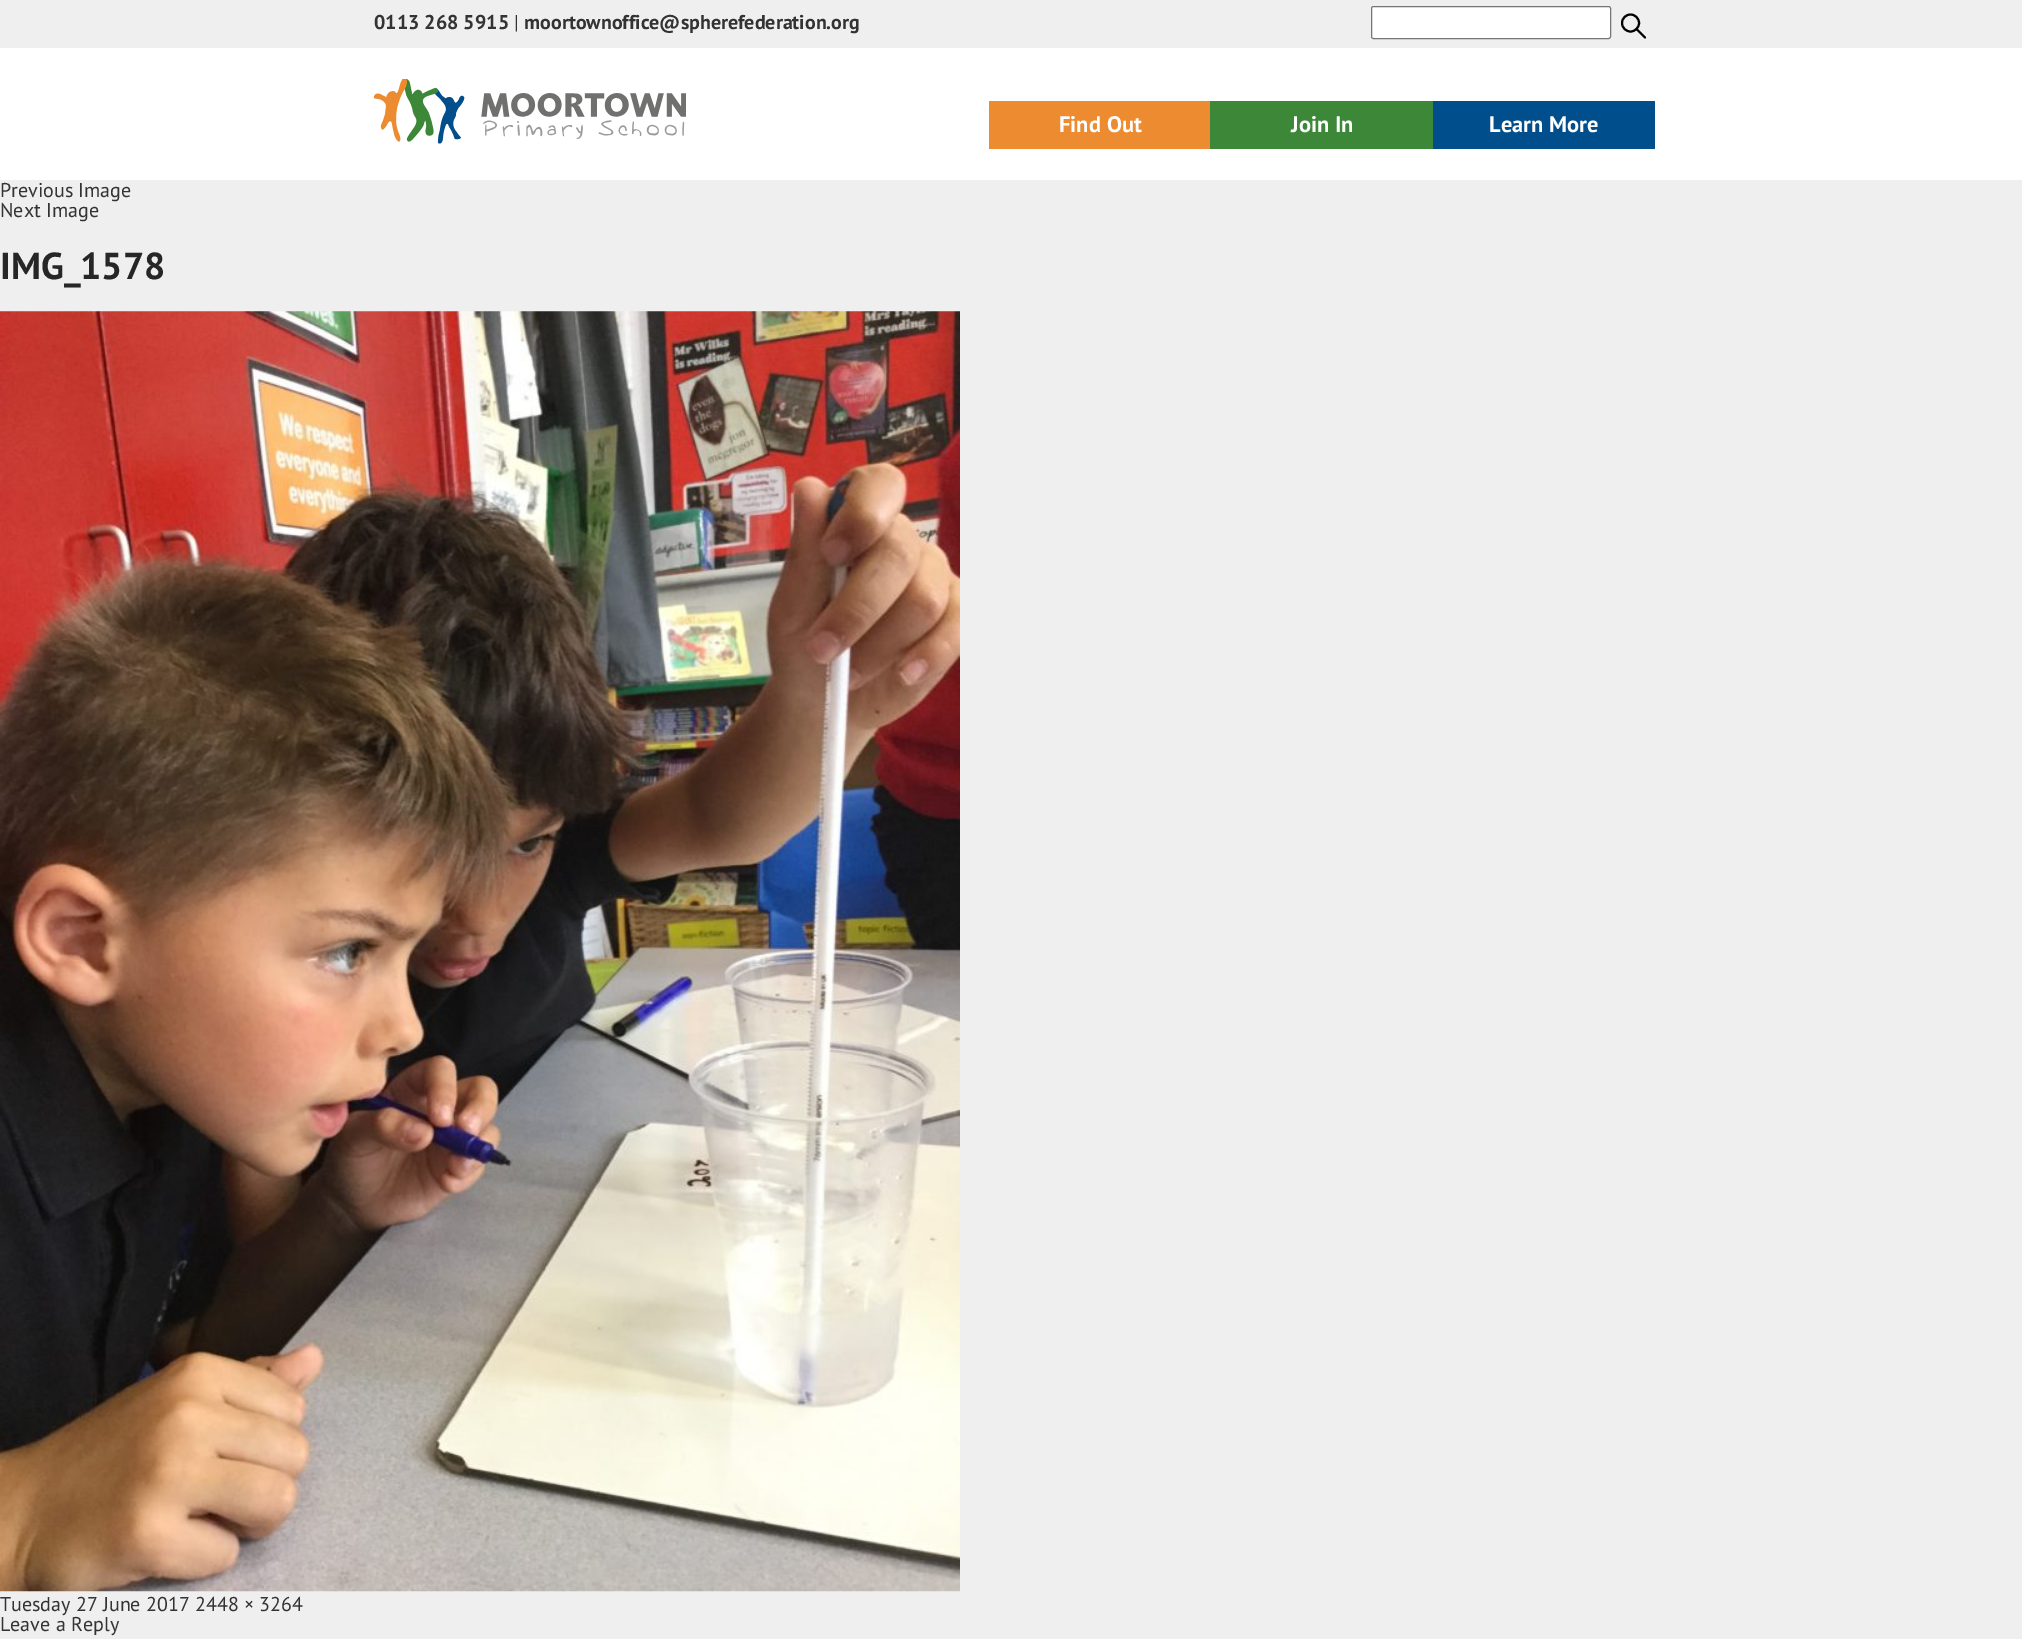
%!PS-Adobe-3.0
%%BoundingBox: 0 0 2022 1639
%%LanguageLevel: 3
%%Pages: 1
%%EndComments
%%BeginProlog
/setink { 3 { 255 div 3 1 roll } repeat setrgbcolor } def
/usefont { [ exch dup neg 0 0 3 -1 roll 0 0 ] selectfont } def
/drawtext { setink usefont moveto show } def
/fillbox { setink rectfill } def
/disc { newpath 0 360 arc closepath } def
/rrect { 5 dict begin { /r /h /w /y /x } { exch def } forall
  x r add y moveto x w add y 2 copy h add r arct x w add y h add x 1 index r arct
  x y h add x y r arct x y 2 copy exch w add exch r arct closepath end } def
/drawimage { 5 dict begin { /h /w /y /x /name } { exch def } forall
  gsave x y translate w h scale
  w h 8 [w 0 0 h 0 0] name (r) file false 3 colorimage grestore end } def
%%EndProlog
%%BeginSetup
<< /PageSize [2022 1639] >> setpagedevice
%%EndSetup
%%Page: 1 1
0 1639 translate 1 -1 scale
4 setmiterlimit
0 0 2022 1639 239 239 239 fillbox
(0113 268 5915) 374 29 /PTSans-Bold 20 51 51 51 drawtext
(|) 514 29 /PTSans-Regular 20 51 51 51 drawtext
(moortownoffice@spherefederation.org) 524 29 /PTSans-Bold 20 51 51 51 drawtext
255 255 255 setink
1371.5 6.5 239 32 2 rrect gsave fill grestore
118 118 118 setink
stroke
0 0 0 setink
2 setlinewidth
1 setlinecap
1 setlinejoin
1636.5 29 moveto 1645 37.5 lineto stroke
0 setlinecap
0 setlinejoin
1630.5 23 8.5 disc stroke
0 48 2022 132 255 255 255 fillbox
(assets/img1.rgb) 374 79 312 65 drawimage
989 101 221 48 237 139 48 fillbox
(Find Out) 1059 132 /PTSans-Bold 22.5 255 255 255 drawtext
1210 101 223 48 61 135 57 fillbox
(Join In) 1291 132 /PTSans-Bold 22.5 255 255 255 drawtext
1433 101 222 48 0 78 140 fillbox
(Learn More) 1489 132 /PTSans-Bold 22.5 255 255 255 drawtext
(Previous Image) 0 197 /PTSans-Regular 20 51 51 51 drawtext
(Next Image) 0 217 /PTSans-Regular 20 51 51 51 drawtext
(IMG_1578) 0 279 /PTSans-Bold 37.5 38 38 38 drawtext
(assets/img2.rgb) 0 311 960 1281 drawimage
(Tuesday 27 June 2017 2448 × 3264) 0 1611 /PTSans-Regular 20 51 51 51 drawtext
(Leave a Reply) 0 1631 /PTSans-Regular 20 51 51 51 drawtext
showpage
%%EOF
